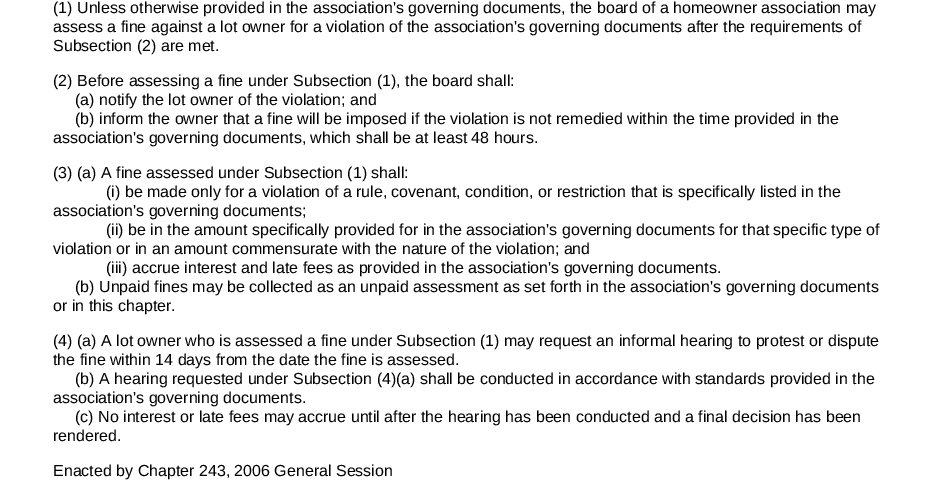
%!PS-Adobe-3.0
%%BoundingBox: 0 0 945 483
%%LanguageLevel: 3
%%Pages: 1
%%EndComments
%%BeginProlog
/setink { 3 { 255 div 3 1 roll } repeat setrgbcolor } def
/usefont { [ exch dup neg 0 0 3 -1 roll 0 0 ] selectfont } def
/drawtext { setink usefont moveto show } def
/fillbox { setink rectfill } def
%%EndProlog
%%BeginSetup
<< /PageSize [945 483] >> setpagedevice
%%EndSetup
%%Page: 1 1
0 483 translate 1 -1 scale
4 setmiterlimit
0 0 945 483 255 255 255 fillbox
(\(1\) Unless otherwise provided in the association's governing documents, the board of a homeowner association may) 53 13 /LiberationSans-Regular 16 0 0 0 drawtext
(assess a fine against a lot owner for a violation of the association's governing documents after the requirements of) 53 32 /LiberationSans-Regular 16 0 0 0 drawtext
(Subsection \(2\) are met.) 53 51 /LiberationSans-Regular 16 0 0 0 drawtext
(\(2\) Before assessing a fine under Subsection \(1\), the board shall:) 53 86 /LiberationSans-Regular 16 0 0 0 drawtext
(\(a\) notify the lot owner of the violation; and) 75 105 /LiberationSans-Regular 16 0 0 0 drawtext
(\(b\) inform the owner that a fine will be imposed if the violation is not remedied within the time provided in the) 75 124 /LiberationSans-Regular 16 0 0 0 drawtext
(association's governing documents, which shall be at least 48 hours.) 53 143 /LiberationSans-Regular 16 0 0 0 drawtext
(\(3\) \(a\) A fine assessed under Subsection \(1\) shall:) 53 178 /LiberationSans-Regular 16 0 0 0 drawtext
(\(i\) be made only for a violation of a rule, covenant, condition, or restriction that is specifically listed in the) 106 197 /LiberationSans-Regular 16 0 0 0 drawtext
(association's governing documents;) 53 216 /LiberationSans-Regular 16 0 0 0 drawtext
(\(ii\) be in the amount specifically provided for in the association's governing documents for that specific type of) 106 235 /LiberationSans-Regular 16 0 0 0 drawtext
(violation or in an amount commensurate with the nature of the violation; and) 53 254 /LiberationSans-Regular 16 0 0 0 drawtext
(\(iii\) accrue interest and late fees as provided in the association's governing documents.) 106 273 /LiberationSans-Regular 16 0 0 0 drawtext
(\(b\) Unpaid fines may be collected as an unpaid assessment as set forth in the association's governing documents) 75 292 /LiberationSans-Regular 16 0 0 0 drawtext
(or in this chapter.) 53 311 /LiberationSans-Regular 16 0 0 0 drawtext
(\(4\) \(a\) A lot owner who is assessed a fine under Subsection \(1\) may request an informal hearing to protest or dispute) 53 346 /LiberationSans-Regular 16 0 0 0 drawtext
(the fine within 14 days from the date the fine is assessed.) 53 365 /LiberationSans-Regular 16 0 0 0 drawtext
(\(b\) A hearing requested under Subsection \(4\)\(a\) shall be conducted in accordance with standards provided in the) 75 384 /LiberationSans-Regular 16 0 0 0 drawtext
(association's governing documents.) 53 403 /LiberationSans-Regular 16 0 0 0 drawtext
(\(c\) No interest or late fees may accrue until after the hearing has been conducted and a final decision has been) 75 422 /LiberationSans-Regular 16 0 0 0 drawtext
(rendered.) 53 441 /LiberationSans-Regular 16 0 0 0 drawtext
(Enacted by Chapter 243, 2006 General Session) 53 476 /LiberationSans-Regular 16 0 0 0 drawtext
showpage
%%EOF
